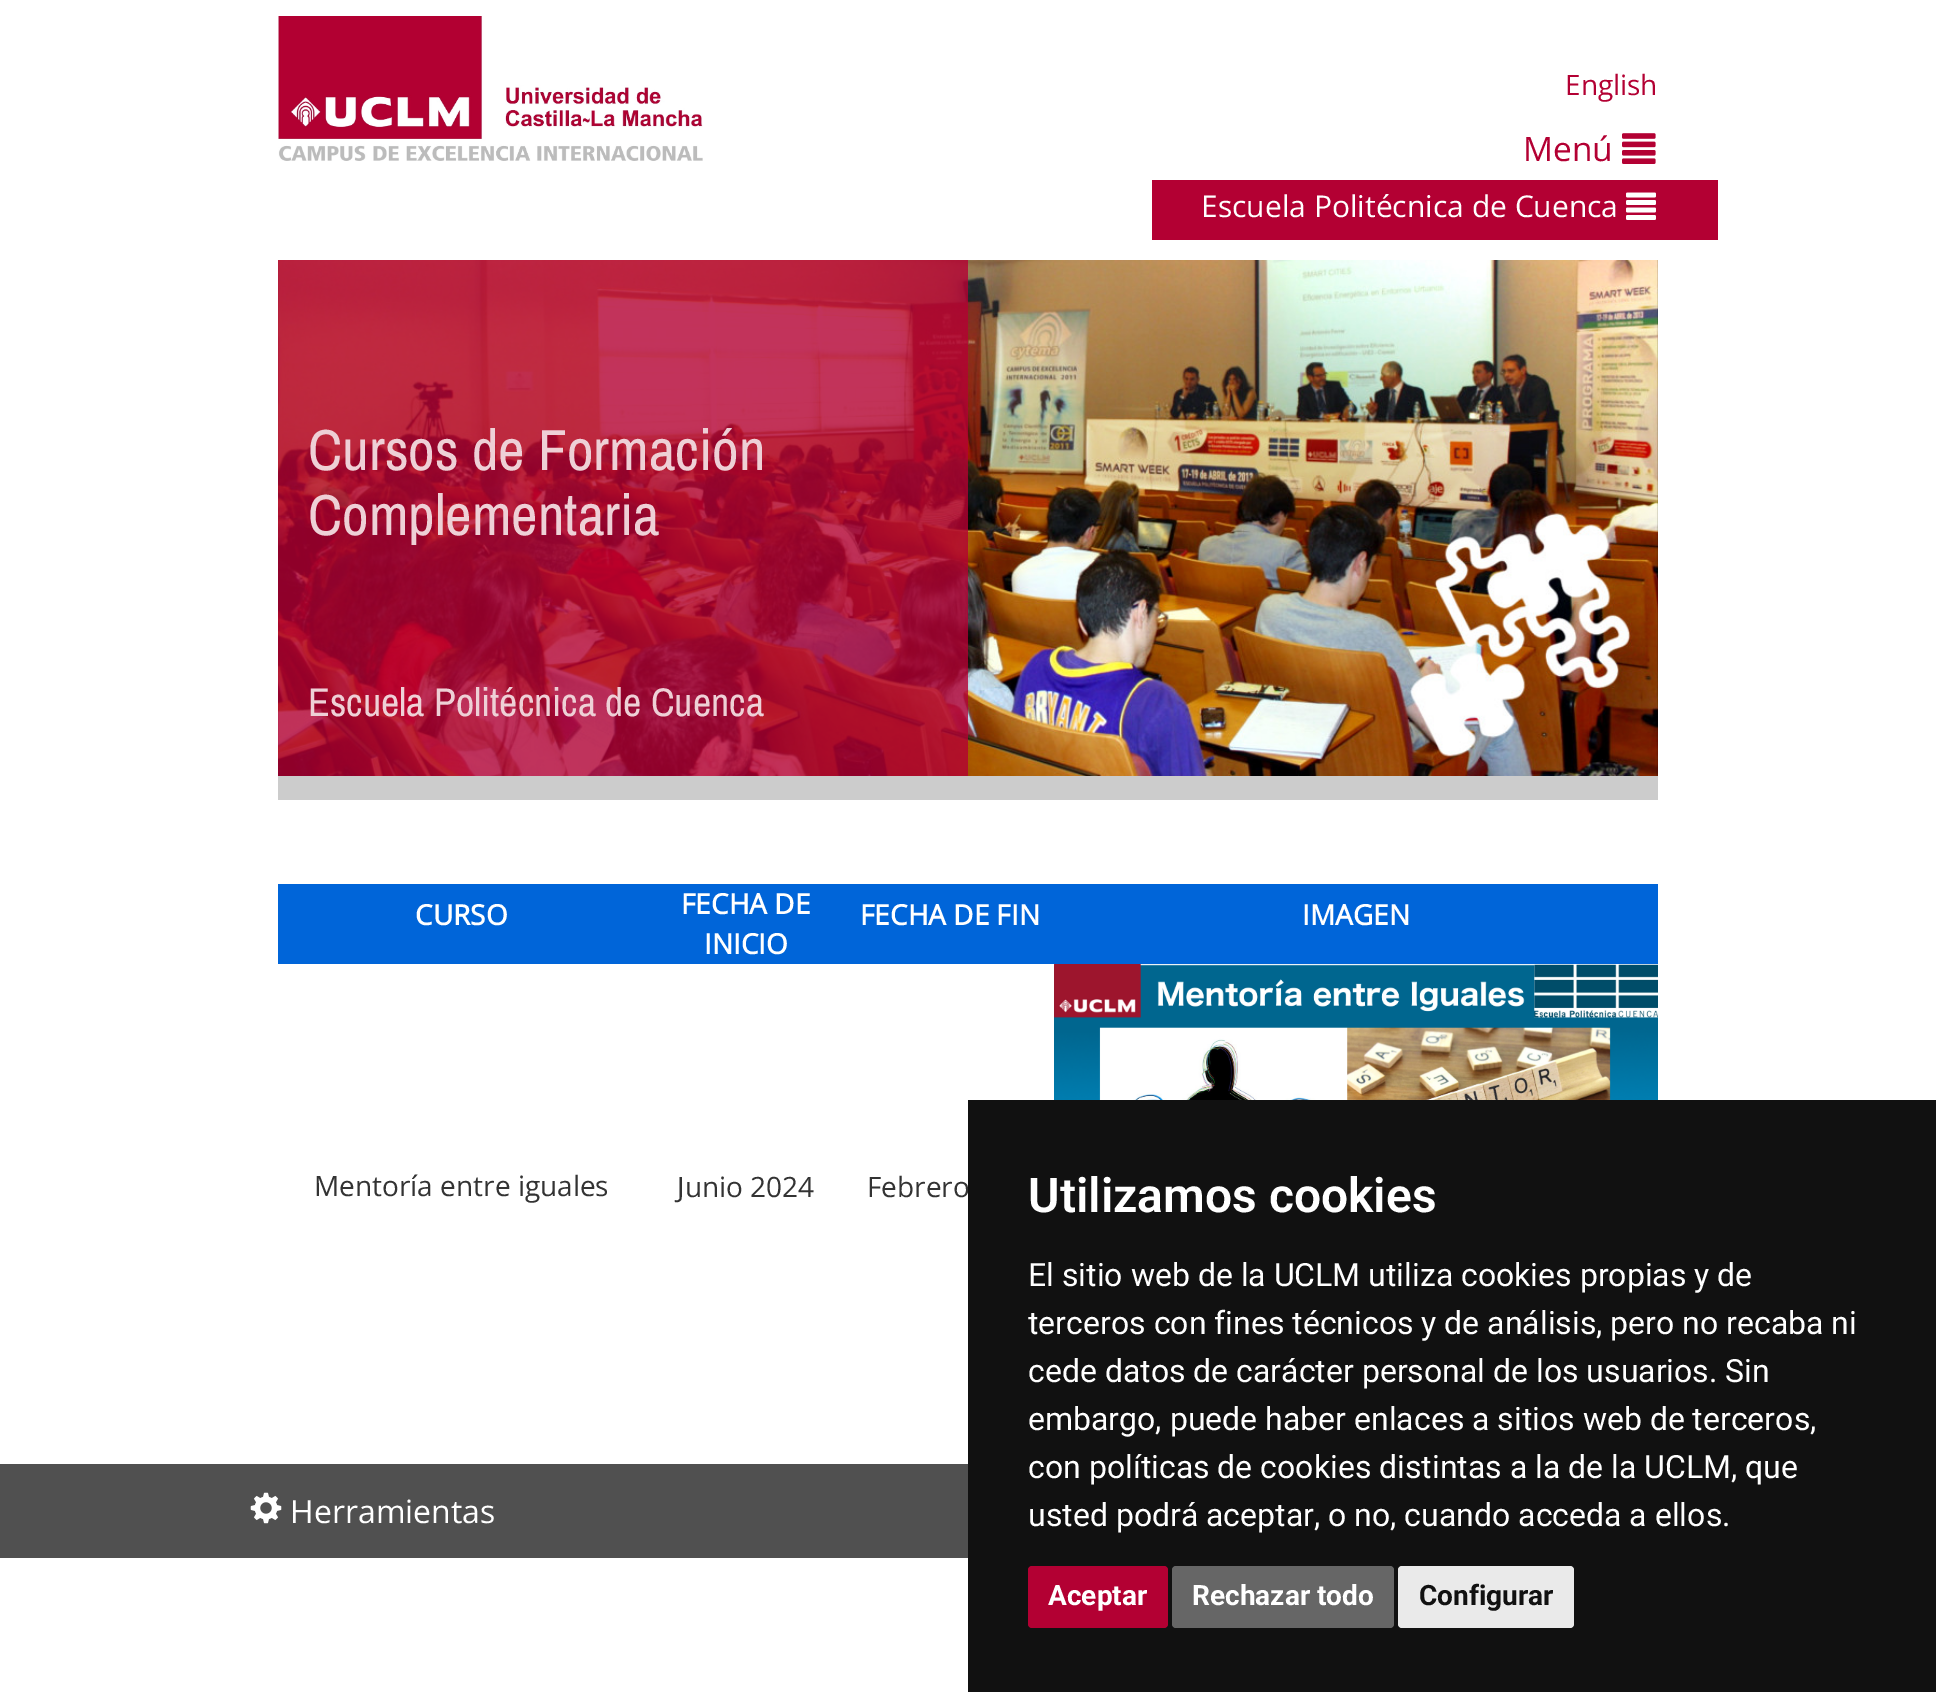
%!PS-Adobe-3.0
%%BoundingBox: 0 0 1936 1692
%%LanguageLevel: 3
%%Pages: 1
%%EndComments
%%BeginProlog
/setink { 3 { 255 div 3 1 roll } repeat setrgbcolor } def
/usefont { [ exch dup neg 0 0 3 -1 roll 0 0 ] selectfont } def
/drawtext { setink usefont moveto show } def
/fillbox { setink rectfill } def
/setalpha { dup .setfillconstantalpha .setstrokeconstantalpha } def
/rrect { 5 dict begin { /r /h /w /y /x } { exch def } forall
  x r add y moveto x w add y 2 copy h add r arct x w add y h add x 1 index r arct
  x y h add x y r arct x y 2 copy exch w add exch r arct closepath end } def
/drawimage { 5 dict begin { /h /w /y /x /name } { exch def } forall
  gsave x y translate w h scale
  w h 8 [w 0 0 h 0 0] name (r) file false 3 colorimage grestore end } def
%%EndProlog
%%BeginSetup
<< /PageSize [1936 1692] /PageUsesTransparency true >> setpagedevice
%%EndSetup
%%Page: 1 1
0 .pushpdf14devicefilter
0 1692 translate 1 -1 scale
4 setmiterlimit
0 0 1936 1692 255 255 255 fillbox
(assets/img1.rgb) 278 16 425 145 drawimage
(English) 1565 95 /OpenSans-Regular 28 179 0 51 drawtext
(Menú) 1523 161 /OpenSans-Regular 33.5 179 0 51 drawtext
(assets/img2.rgb) 1622 133 34 31 drawimage
1152 180 566 60 179 0 51 fillbox
(Escuela Politécnica de Cuenca) 1201 217 /OpenSans-Regular 30 255 255 255 drawtext
(assets/img3.rgb) 1626 192 30 28 drawimage
(assets/img4.rgb) 278 260 1380 516 drawimage
0.8 setalpha
278 260 690 516 179 0 51 fillbox
1 setalpha
(Cursos de Formación) 308 470 /ArchivoNarrow-Regular 58 238 208 214 drawtext
(Complementaria) 308 535 /ArchivoNarrow-Regular 58 238 208 214 drawtext
(Escuela Politécnica de Cuenca) 308 716 /ArchivoNarrow-Regular 40 238 208 214 drawtext
278 776 1380 24 204 204 204 fillbox
278 884 1380 80 0 101 217 fillbox
(CURSO) 415 925 /OpenSans-Bold 28 255 255 255 drawtext
(FECHA DE) 681 914 /OpenSans-Bold 28 255 255 255 drawtext
(INICIO) 704 954 /OpenSans-Bold 28 255 255 255 drawtext
(FECHA DE FIN) 860 925 /OpenSans-Bold 28 255 255 255 drawtext
(IMAGEN) 1302 925 /OpenSans-Bold 28 255 255 255 drawtext
(assets/img5.rgb) 1054 964 604 136 drawimage
(Mentoría entre iguales) 314 1196 /OpenSans-Regular 28 51 51 51 drawtext
(Junio 2024) 677 1197 /OpenSans-Regular 28 51 51 51 drawtext
(Febrero) 867 1197 /OpenSans-Regular 28 51 51 51 drawtext
0 1464 968 94 80 80 80 fillbox
(assets/img6.rgb) 250 1492 32 32 drawimage
(Herramientas) 290 1523 /OpenSans-Regular 32 255 255 255 drawtext
968 1100 968 592 17 17 17 fillbox
(Utilizamos cookies) 1028 1212 /Roboto-SemiBold 48 255 255 255 drawtext
(El sitio web de la UCLM utiliza cookies propias y de) 1028 1286 /Roboto-Regular 32 255 255 255 drawtext
(terceros con fines técnicos y de análisis, pero no recaba ni) 1028 1334 /Roboto-Regular 32 255 255 255 drawtext
(cede datos de carácter personal de los usuarios. Sin) 1028 1382 /Roboto-Regular 32 255 255 255 drawtext
(embargo, puede haber enlaces a sitios web de terceros,) 1028 1430 /Roboto-Regular 32 255 255 255 drawtext
(con políticas de cookies distintas a la de la UCLM, que) 1028 1478 /Roboto-Regular 32 255 255 255 drawtext
(usted podrá aceptar, o no, cuando acceda a ellos.) 1028 1526 /Roboto-Regular 32 255 255 255 drawtext
179 0 51 setink
1028 1566 140 62 4 rrect fill
(Aceptar) 1048 1605 /Roboto-Bold 28 255 255 255 drawtext
102 102 102 setink
1172 1566 222 62 4 rrect fill
(Rechazar todo) 1192 1605 /Roboto-Bold 28 255 255 255 drawtext
234 234 234 setink
1398 1566 176 62 4 rrect fill
(Configurar) 1419 1605 /Roboto-Bold 28 17 17 17 drawtext
.poppdf14devicefilter showpage
%%EOF
